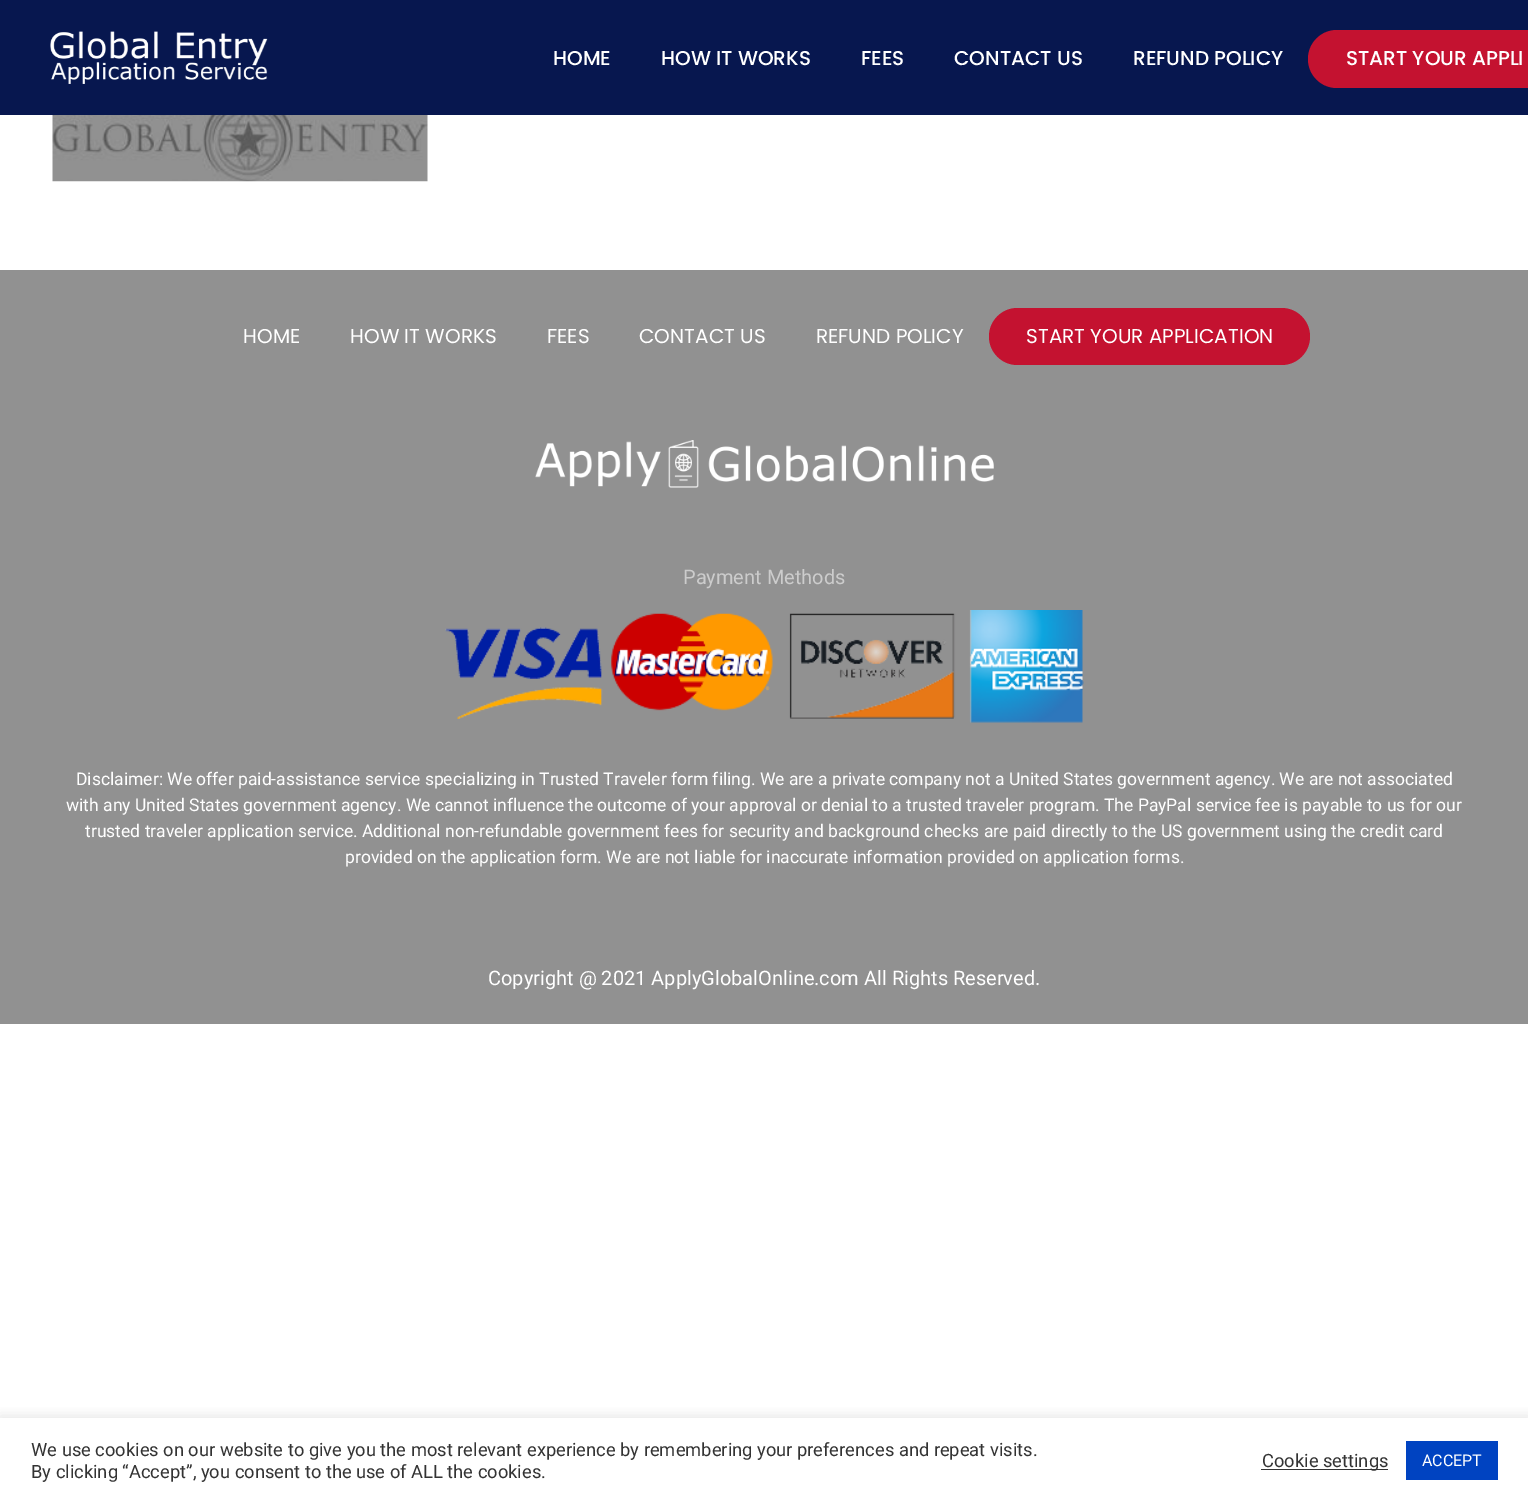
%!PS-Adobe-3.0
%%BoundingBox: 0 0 1528 1503
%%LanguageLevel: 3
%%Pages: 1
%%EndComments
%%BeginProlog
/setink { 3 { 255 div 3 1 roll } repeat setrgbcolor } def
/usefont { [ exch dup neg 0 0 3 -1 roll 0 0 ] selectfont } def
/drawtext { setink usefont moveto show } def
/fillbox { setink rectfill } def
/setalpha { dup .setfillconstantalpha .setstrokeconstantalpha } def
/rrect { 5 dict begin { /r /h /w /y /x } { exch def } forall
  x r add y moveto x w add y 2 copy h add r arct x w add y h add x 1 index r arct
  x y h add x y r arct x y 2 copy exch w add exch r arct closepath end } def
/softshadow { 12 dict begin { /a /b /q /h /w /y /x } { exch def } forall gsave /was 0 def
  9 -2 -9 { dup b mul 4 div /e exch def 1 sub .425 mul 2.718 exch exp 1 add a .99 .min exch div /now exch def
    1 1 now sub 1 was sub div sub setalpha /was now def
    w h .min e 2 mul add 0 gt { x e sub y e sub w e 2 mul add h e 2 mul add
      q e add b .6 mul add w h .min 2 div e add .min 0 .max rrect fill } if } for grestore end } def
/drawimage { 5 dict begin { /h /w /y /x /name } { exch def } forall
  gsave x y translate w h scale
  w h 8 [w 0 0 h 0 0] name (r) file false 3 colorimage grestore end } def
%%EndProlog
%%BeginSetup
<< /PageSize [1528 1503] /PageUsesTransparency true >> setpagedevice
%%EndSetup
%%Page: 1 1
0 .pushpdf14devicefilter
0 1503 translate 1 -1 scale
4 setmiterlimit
0 0 1528 1503 255 255 255 fillbox
0 0 1528 115 7 23 79 fillbox
(assets/img1.rgb) 50 31 218 53 drawimage
(HOME) 553 65 /Poppins-Medium 20 255 255 255 drawtext
(HOW IT WORKS) 661 65 /Poppins-Medium 20 255 255 255 drawtext
(FEES) 861 65 /Poppins-Medium 20 255 255 255 drawtext
(CONTACT US) 954 65 /Poppins-Medium 20 255 255 255 drawtext
(REFUND POLICY) 1133 65 /Poppins-Medium 20 255 255 255 drawtext
196 18 48 setink
1308 30 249 58 29 rrect fill
(START YOUR APPLI) 1346 65 /Poppins-Medium 20 255 255 255 drawtext
(assets/img2.rgb) 52 115 376 67 drawimage
0 270 1528 754 145 145 145 fillbox
(HOME) 243 343 /Poppins-Regular 20 255 255 255 drawtext
(HOW IT WORKS) 350 343 /Poppins-Regular 20 255 255 255 drawtext
(FEES) 547 343 /Poppins-Regular 20 255 255 255 drawtext
(CONTACT US) 639 343 /Poppins-Regular 20 255 255 255 drawtext
(REFUND POLICY) 816 343 /Poppins-Regular 20 255 255 255 drawtext
196 18 48 setink
989 308 321 57 28.5 rrect fill
(START YOUR APPLICATION) 1026 343 /Poppins-Regular 20 255 255 255 drawtext
(assets/img3.rgb) 535 440 459 48 drawimage
(Payment Methods) 683 584 /Roboto-Regular 20 204 204 204 drawtext
(assets/img4.rgb) 445 610 639 113 drawimage
(Disclaimer: We offer paid-assistance service specializing in Trusted Traveler form filing. We are a private company not a United States government agency. We are not associated) 76 785 /Roboto-Regular 17.5 255 255 255 drawtext
(with any United States government agency. We cannot influence the outcome of your approval or denial to a trusted traveler program. The PayPal service fee is payable to us for our) 66 811 /Roboto-Regular 17.5 255 255 255 drawtext
(trusted traveler application service. Additional non-refundable government fees for security and background checks are paid directly to the US government using the credit card) 85 837 /Roboto-Regular 17.5 255 255 255 drawtext
(provided on the application form. We are not liable for inaccurate information provided on application forms.) 345 863 /Roboto-Regular 17.5 255 255 255 drawtext
(Copyright @ 2021 ApplyGlobalOnline.com All Rights Reserved.) 488 985 /Roboto-Regular 20 255 255 255 drawtext
gsave
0 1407 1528 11 rectclip
172 171 171 setink
0 1416 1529 87 0 6 0.3 softshadow
grestore
(We use cookies on our website to give you the most relevant experience by remembering your preferences and repeat visits.) 31 1456 /Roboto-Regular 18.33 51 51 51 drawtext
(By clicking “Accept”, you consent to the use of ALL the cookies.) 31 1478 /Roboto-Regular 18.33 51 51 51 drawtext
1261 1469 127 1 51 51 51 fillbox
(Cookie settings) 1262 1467 /Roboto-Regular 18.33 51 51 51 drawtext
1406 1441 92 39 0 67 193 fillbox
(ACCEPT) 1422 1466 /Roboto-Regular 16 255 255 255 drawtext
.poppdf14devicefilter showpage
%%EOF
